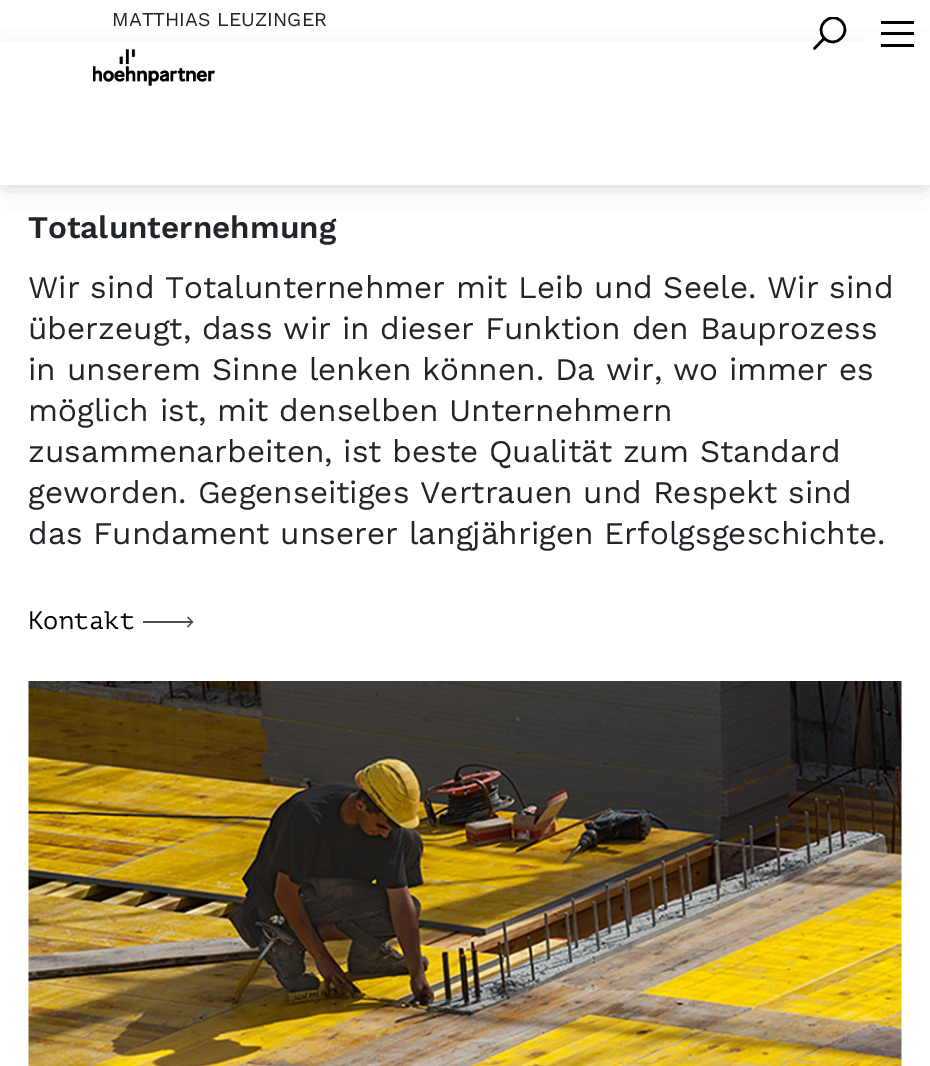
%!PS-Adobe-3.0
%%BoundingBox: 0 0 930 1066
%%LanguageLevel: 3
%%Pages: 1
%%EndComments
%%BeginProlog
/setink { 3 { 255 div 3 1 roll } repeat setrgbcolor } def
/usefont { [ exch dup neg 0 0 3 -1 roll 0 0 ] selectfont } def
/drawtext { setink usefont moveto show } def
/fillbox { setink rectfill } def
/setalpha { dup .setfillconstantalpha .setstrokeconstantalpha } def
/rrect { 5 dict begin { /r /h /w /y /x } { exch def } forall
  x r add y moveto x w add y 2 copy h add r arct x w add y h add x 1 index r arct
  x y h add x y r arct x y 2 copy exch w add exch r arct closepath end } def
/softshadow { 12 dict begin { /a /b /q /h /w /y /x } { exch def } forall gsave /was 0 def
  9 -2 -9 { dup b mul 4 div /e exch def 1 sub .425 mul 2.718 exch exp 1 add a .99 .min exch div /now exch def
    1 1 now sub 1 was sub div sub setalpha /was now def
    w h .min e 2 mul add 0 gt { x e sub y e sub w e 2 mul add h e 2 mul add
      q e add b .6 mul add w h .min 2 div e add .min 0 .max rrect fill } if } for grestore end } def
/drawimage { 5 dict begin { /h /w /y /x /name } { exch def } forall
  gsave x y translate w h scale
  w h 8 [w 0 0 h 0 0] name (r) file false 3 colorimage grestore end } def
%%EndProlog
%%BeginSetup
<< /PageSize [930 1066] /PageUsesTransparency true >> setpagedevice
%%EndSetup
%%Page: 1 1
0 .pushpdf14devicefilter
0 1066 translate 1 -1 scale
4 setmiterlimit
0 0 930 1066 255 255 255 fillbox
(MATTHIAS LEUZINGER) 112 26 /WorkSans-Regular 19.5 33 37 41 drawtext
(Totalunternehmung) 28 238 /WorkSans-SemiBold 31.5 33 37 41 drawtext
(Wir sind Totalunternehmer mit Leib und Seele. Wir sind) 28 298 /WorkSans-Regular 31.5 33 37 41 drawtext
(überzeugt, dass wir in dieser Funktion den Bauprozess) 28 339 /WorkSans-Regular 31.5 33 37 41 drawtext
(in unserem Sinne lenken können. Da wir, wo immer es) 28 380 /WorkSans-Regular 31.5 33 37 41 drawtext
(möglich ist, mit denselben Unternehmern) 28 421 /WorkSans-Regular 31.5 33 37 41 drawtext
(zusammenarbeiten, ist beste Qualität zum Standard) 28 462 /WorkSans-Regular 31.5 33 37 41 drawtext
(geworden. Gegenseitiges Vertrauen und Respekt sind) 28 503 /WorkSans-Regular 31.5 33 37 41 drawtext
(das Fundament unserer langjährigen Erfolgsgeschichte.) 28 544 /WorkSans-Regular 31.5 33 37 41 drawtext
(Kontakt) 28 629 /PTMono-Regular 25.5 0 0 0 drawtext
78 78 78 setink
188 627.5 moveto 187 626.5 lineto 191.5 622 lineto 187 617.5 lineto 188 616.5 lineto 193.5 622 lineto closepath fill
143 621 49 2 78 78 78 fillbox
(assets/img1.rgb) 28 681 874 385 drawimage
23 63 53 setink
6 54 918 131 0 12 0.24 softshadow
0 42 930 143 255 255 255 fillbox
gsave
813 17 35 33 rectclip
0 0 0 setink
2.5 setlinewidth
841.5 21.5 moveto 852.5 32.5 835.5 49.5 824.5 38.5 curveto 813.5 27 830.5 10 841.5 21.5 curveto closepath stroke
grestore
0 0 0 setink
2.5 setlinewidth
1 setlinecap
824 38.5 moveto 814.5 48.5 lineto stroke
864 34 66 8 255 255 255 fillbox
881 32 33 3 0 0 0 fillbox
881 21 33 3 0 0 0 fillbox
881 44 33 3 0 0 0 fillbox
(assets/img2.rgb) 93 49 122 37 drawimage
(assets/img3.rgb) 93 49 122 37 drawimage
.poppdf14devicefilter showpage
%%EOF
